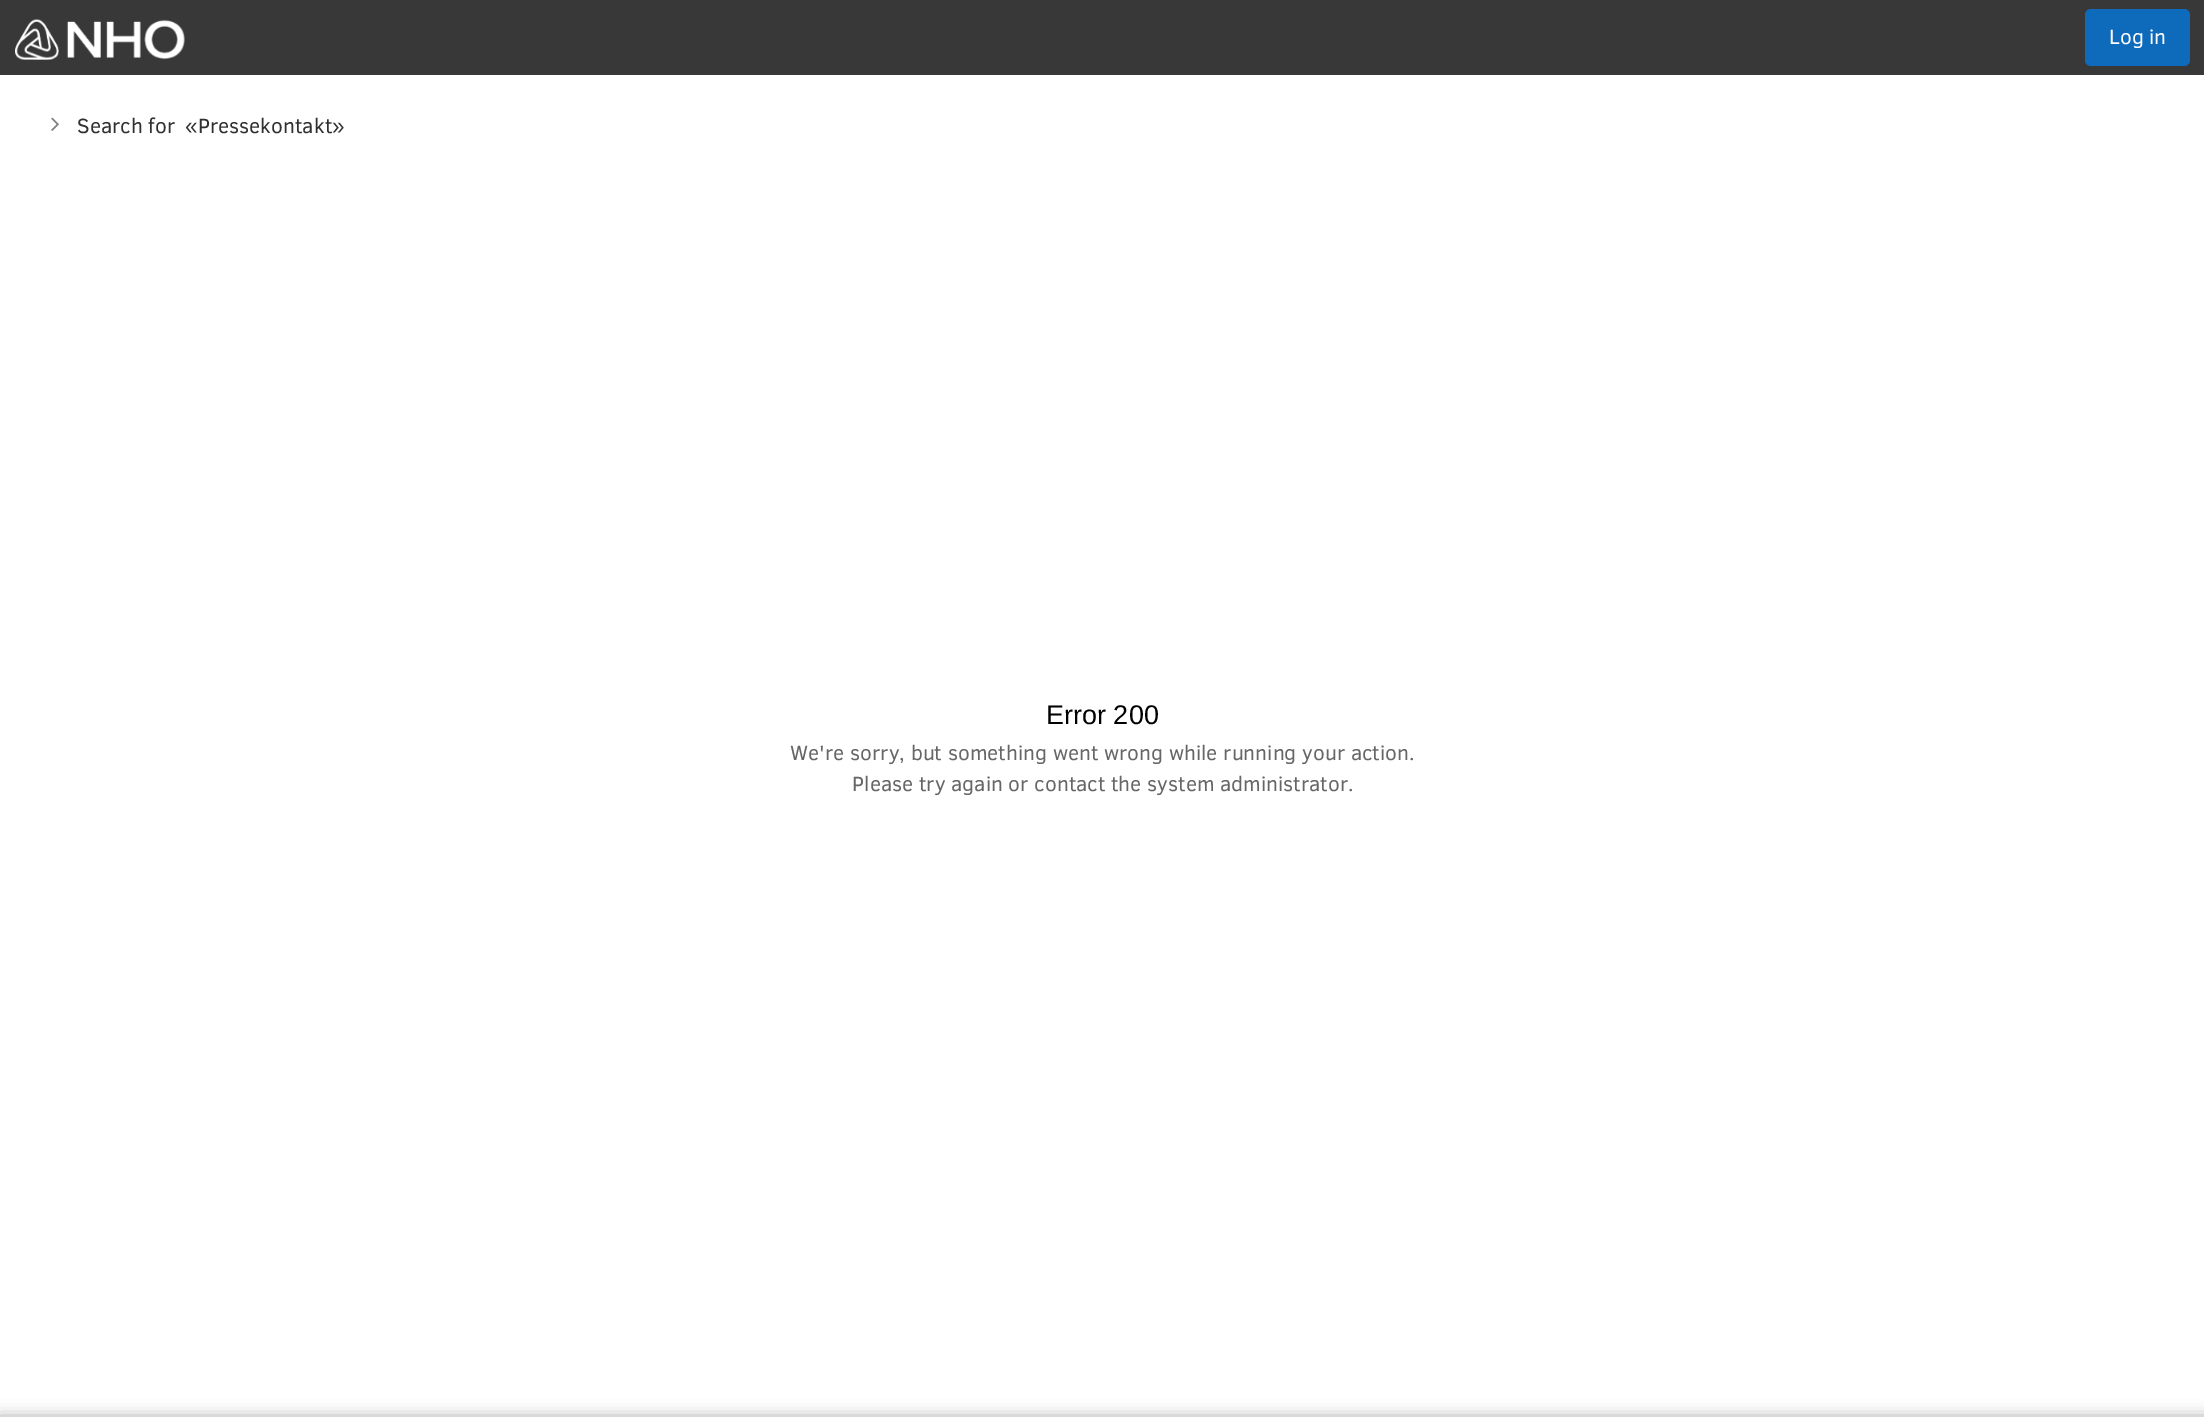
%!PS-Adobe-3.0
%%BoundingBox: 0 0 2204 1417
%%LanguageLevel: 3
%%Pages: 1
%%EndComments
%%BeginProlog
/setink { 3 { 255 div 3 1 roll } repeat setrgbcolor } def
/usefont { [ exch dup neg 0 0 3 -1 roll 0 0 ] selectfont } def
/drawtext { setink usefont moveto show } def
/fillbox { setink rectfill } def
/setalpha { dup .setfillconstantalpha .setstrokeconstantalpha } def
/rrect { 5 dict begin { /r /h /w /y /x } { exch def } forall
  x r add y moveto x w add y 2 copy h add r arct x w add y h add x 1 index r arct
  x y h add x y r arct x y 2 copy exch w add exch r arct closepath end } def
/softshadow { 12 dict begin { /a /b /q /h /w /y /x } { exch def } forall gsave /was 0 def
  9 -2 -9 { dup b mul 4 div /e exch def 1 sub .425 mul 2.718 exch exp 1 add a .99 .min exch div /now exch def
    1 1 now sub 1 was sub div sub setalpha /was now def
    w h .min e 2 mul add 0 gt { x e sub y e sub w e 2 mul add h e 2 mul add
      q e add b .6 mul add w h .min 2 div e add .min 0 .max rrect fill } if } for grestore end } def
/drawimage { 5 dict begin { /h /w /y /x /name } { exch def } forall
  gsave x y translate w h scale
  w h 8 [w 0 0 h 0 0] name (r) file false 3 colorimage grestore end } def
%%EndProlog
%%BeginSetup
<< /PageSize [2204 1417] /PageUsesTransparency true >> setpagedevice
%%EndSetup
%%Page: 1 1
0 .pushpdf14devicefilter
0 1417 translate 1 -1 scale
4 setmiterlimit
0 0 2204 1417 255 255 255 fillbox
0 0 2204 75 56 56 56 fillbox
(assets/img1.rgb) 15 19 170 41 drawimage
14 106 186 setink
2085 9 105 57 6 rrect fill
(Log in) 2109 44 /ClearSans-Regular 21 255 255 255 drawtext
(assets/img2.rgb) 51 117 8 14 drawimage
(Search for) 77 133 /ClearSans-Regular 21 48 48 48 drawtext
(«Pressekontakt) 185 133 /ClearSans-Regular 21 48 48 48 drawtext
(») 332 133 /ClearSans-Regular 21 48 48 48 drawtext
(Error 200) 1046 724 /LiberationSans-Regular 27 0 0 0 drawtext
(We're sorry, but something went wrong while running your action.) 790 760 /ClearSans-Regular 21 102 102 102 drawtext
(Please try again or contact the system administrator.) 852 791 /ClearSans-Regular 21 102 102 102 drawtext
0 0 0 setink
-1 1416 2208 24 0 7.5 0.3 softshadow
.poppdf14devicefilter showpage
%%EOF
